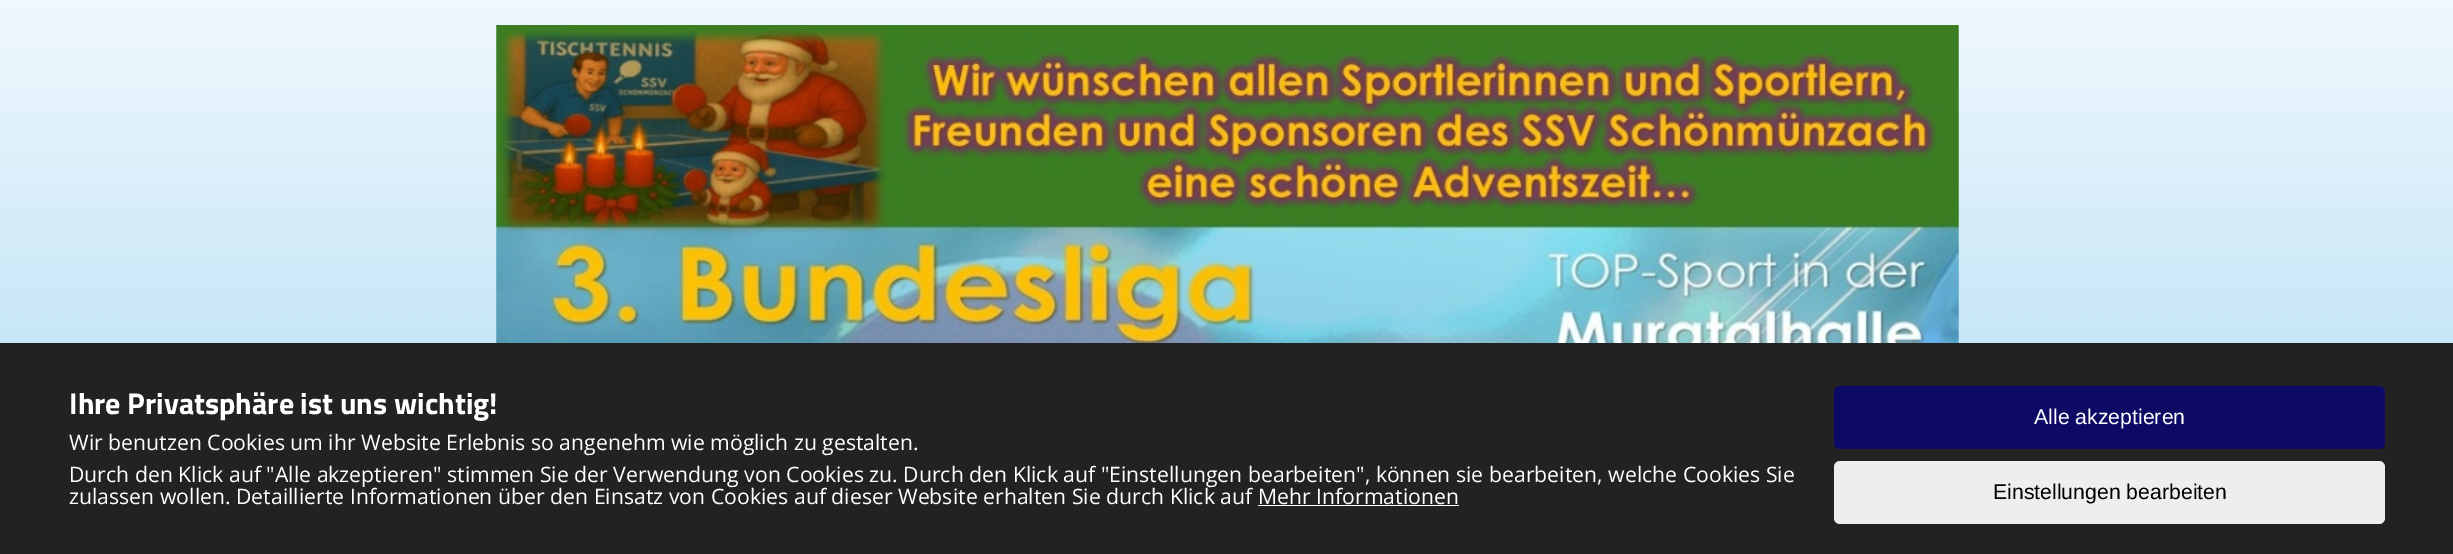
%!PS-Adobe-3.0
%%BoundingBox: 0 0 2453 554
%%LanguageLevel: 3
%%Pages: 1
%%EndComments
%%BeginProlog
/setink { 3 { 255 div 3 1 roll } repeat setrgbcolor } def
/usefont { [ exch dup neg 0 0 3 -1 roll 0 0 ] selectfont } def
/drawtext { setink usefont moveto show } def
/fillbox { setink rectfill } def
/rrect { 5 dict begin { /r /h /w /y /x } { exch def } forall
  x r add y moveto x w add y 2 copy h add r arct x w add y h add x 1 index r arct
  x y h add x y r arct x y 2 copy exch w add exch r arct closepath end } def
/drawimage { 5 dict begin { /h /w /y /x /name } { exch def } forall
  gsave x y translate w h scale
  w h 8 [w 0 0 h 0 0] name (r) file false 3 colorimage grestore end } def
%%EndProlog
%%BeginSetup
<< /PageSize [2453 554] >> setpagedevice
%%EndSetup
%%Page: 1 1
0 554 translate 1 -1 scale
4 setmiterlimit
0 0 2453 554 255 255 255 fillbox
(assets/img1.rgb) 0 0 2453 343 drawimage
(assets/img2.rgb) 496 25 1463 318 drawimage
0 343 2453 211 34 34 34 fillbox
(Ihre Privatsphäre ist uns wichtig!) 69 414 /TitilliumWeb-Bold 30 255 255 255 drawtext
(Wir benutzen Cookies um ihr Website Erlebnis so angenehm wie möglich zu gestalten.) 69 450 /OpenSans-Regular 21.25 255 255 255 drawtext
(Durch den Klick auf "Alle akzeptieren" stimmen Sie der Verwendung von Cookies zu. Durch den Klick auf "Einstellungen bearbeiten", können sie bearbeiten, welche Cookies Sie) 69 482 /OpenSans-Regular 21.25 255 255 255 drawtext
(zulassen wollen. Detaillierte Informationen über den Einsatz von Cookies auf dieser Website erhalten Sie durch Klick auf Mehr Informationen) 69 504 /OpenSans-Regular 21.25 255 255 255 drawtext
1258 505 201 1 255 255 255 fillbox
13 10 102 setink
1834 386 551 63 6 rrect fill
(Alle akzeptieren) 2034 424 /LiberationSans-Regular 21.25 255 255 255 drawtext
238 238 238 setink
1834 461 551 63 6 rrect fill
(Einstellungen bearbeiten) 1993 499 /LiberationSans-Regular 21.25 0 0 0 drawtext
showpage
%%EOF
